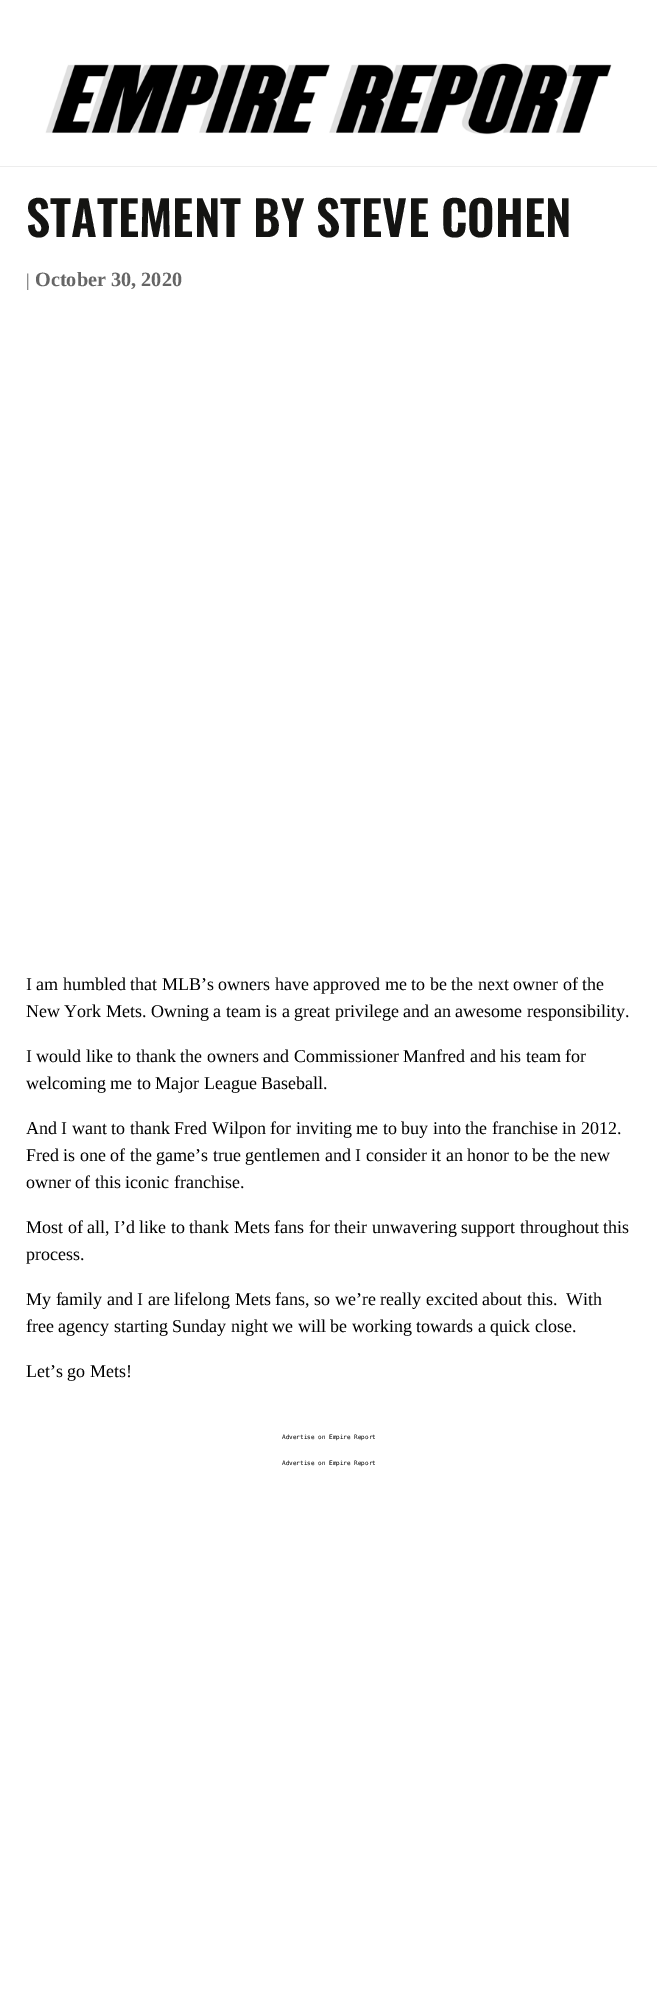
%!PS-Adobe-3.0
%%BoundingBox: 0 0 657 2010
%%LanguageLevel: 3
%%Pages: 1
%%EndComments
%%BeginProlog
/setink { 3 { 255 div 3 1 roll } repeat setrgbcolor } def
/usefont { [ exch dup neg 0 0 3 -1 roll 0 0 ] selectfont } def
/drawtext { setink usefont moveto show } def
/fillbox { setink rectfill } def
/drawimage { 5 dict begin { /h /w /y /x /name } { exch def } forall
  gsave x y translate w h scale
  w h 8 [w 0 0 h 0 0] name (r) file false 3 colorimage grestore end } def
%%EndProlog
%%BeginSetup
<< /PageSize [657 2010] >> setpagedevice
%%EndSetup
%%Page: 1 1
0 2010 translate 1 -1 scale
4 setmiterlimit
0 0 657 2010 255 255 255 fillbox
(assets/img1.rgb) 45 63 567 72 drawimage
0 166 657 1 237 237 237 fillbox
(STATEMENT BY STEVE COHEN) 26 237 /Oswald-SemiBold 48 20 20 18 drawtext
(|) 26 286 /LiberationSerif-Regular 18 102 102 102 drawtext
(October 30, 2020) 35 286 /LiberationSerif-Bold 20.25 102 102 102 drawtext
(I am humbled that MLB’s owners have approved me to be the next owner of the) 26 990 /LiberationSerif-Regular 18 0 0 0 drawtext
(New York Mets. Owning a team is a great privilege and an awesome responsibility.) 26 1017 /LiberationSerif-Regular 18 0 0 0 drawtext
(I would like to thank the owners and Commissioner Manfred and his team for) 26 1062 /LiberationSerif-Regular 18 0 0 0 drawtext
(welcoming me to Major League Baseball.) 26 1089 /LiberationSerif-Regular 18 0 0 0 drawtext
(And I want to thank Fred Wilpon for inviting me to buy into the franchise in 2012.) 26 1134 /LiberationSerif-Regular 18 0 0 0 drawtext
(Fred is one of the game’s true gentlemen and I consider it an honor to be the new) 26 1161 /LiberationSerif-Regular 18 0 0 0 drawtext
(owner of this iconic franchise.) 26 1188 /LiberationSerif-Regular 18 0 0 0 drawtext
(Most of all, I’d like to thank Mets fans for their unwavering support throughout this) 26 1233 /LiberationSerif-Regular 18 0 0 0 drawtext
(process.) 26 1260 /LiberationSerif-Regular 18 0 0 0 drawtext
(My family and I are lifelong Mets fans, so we’re really excited about this.  With) 26 1305 /LiberationSerif-Regular 18 0 0 0 drawtext
(free agency starting Sunday night we will be working towards a quick close.) 26 1332 /LiberationSerif-Regular 18 0 0 0 drawtext
(Let’s go Mets!) 26 1377 /LiberationSerif-Regular 18 0 0 0 drawtext
(Advertise on Empire Report) 282 1439 /DejaVuSansMono-Regular 6 0 0 0 drawtext
(Advertise on Empire Report) 282 1465 /DejaVuSansMono-Regular 6 0 0 0 drawtext
showpage
%%EOF
